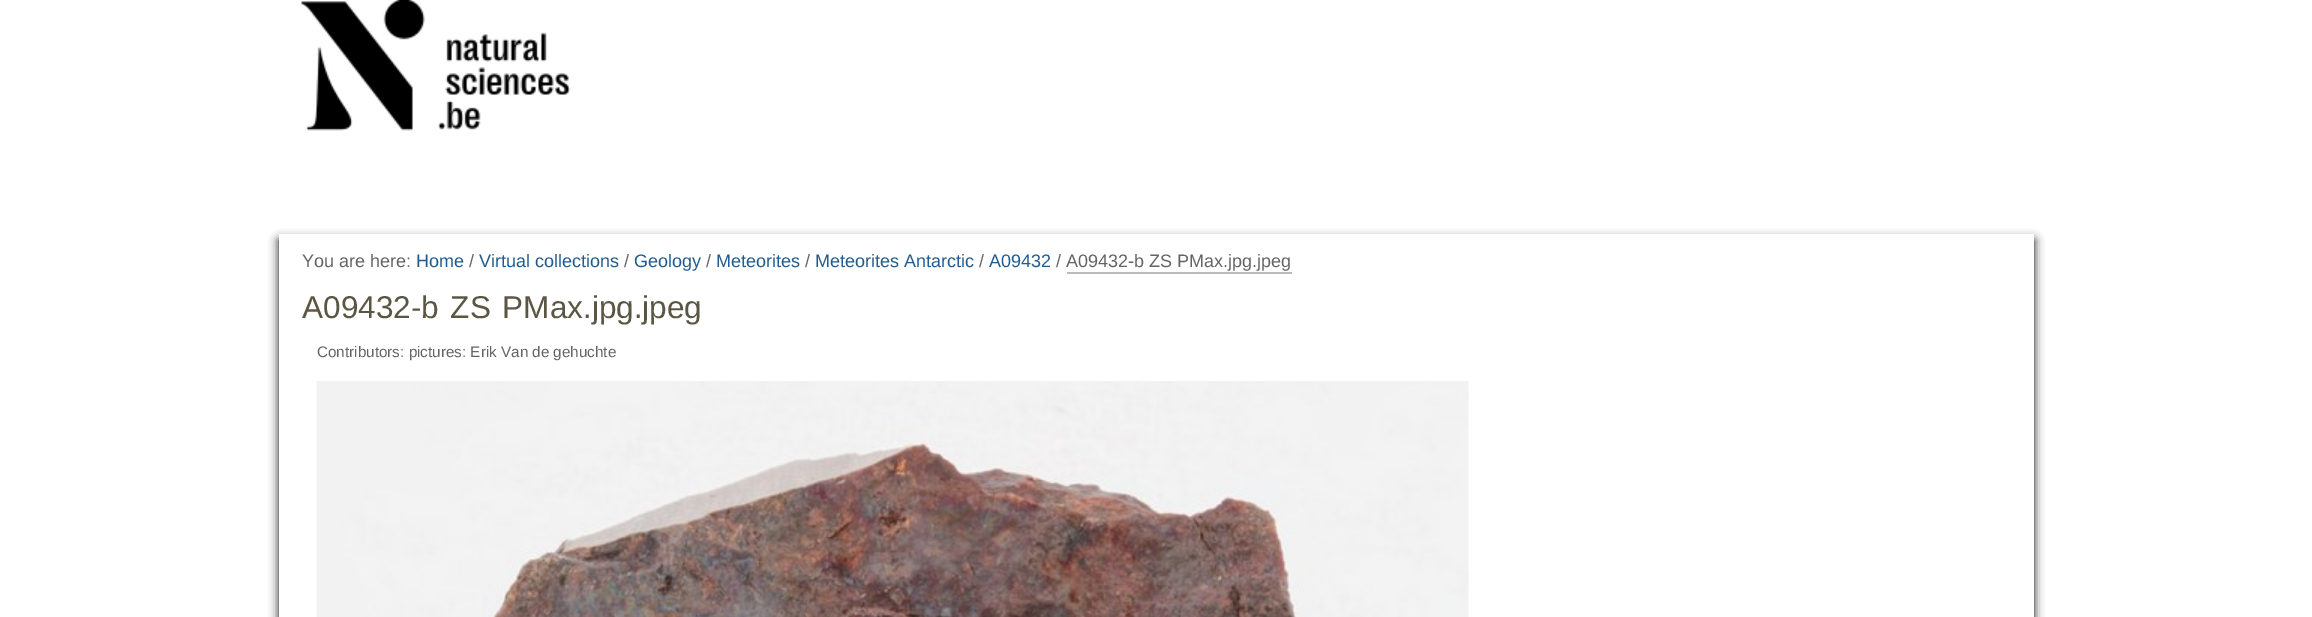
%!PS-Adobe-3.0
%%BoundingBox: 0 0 2312 617
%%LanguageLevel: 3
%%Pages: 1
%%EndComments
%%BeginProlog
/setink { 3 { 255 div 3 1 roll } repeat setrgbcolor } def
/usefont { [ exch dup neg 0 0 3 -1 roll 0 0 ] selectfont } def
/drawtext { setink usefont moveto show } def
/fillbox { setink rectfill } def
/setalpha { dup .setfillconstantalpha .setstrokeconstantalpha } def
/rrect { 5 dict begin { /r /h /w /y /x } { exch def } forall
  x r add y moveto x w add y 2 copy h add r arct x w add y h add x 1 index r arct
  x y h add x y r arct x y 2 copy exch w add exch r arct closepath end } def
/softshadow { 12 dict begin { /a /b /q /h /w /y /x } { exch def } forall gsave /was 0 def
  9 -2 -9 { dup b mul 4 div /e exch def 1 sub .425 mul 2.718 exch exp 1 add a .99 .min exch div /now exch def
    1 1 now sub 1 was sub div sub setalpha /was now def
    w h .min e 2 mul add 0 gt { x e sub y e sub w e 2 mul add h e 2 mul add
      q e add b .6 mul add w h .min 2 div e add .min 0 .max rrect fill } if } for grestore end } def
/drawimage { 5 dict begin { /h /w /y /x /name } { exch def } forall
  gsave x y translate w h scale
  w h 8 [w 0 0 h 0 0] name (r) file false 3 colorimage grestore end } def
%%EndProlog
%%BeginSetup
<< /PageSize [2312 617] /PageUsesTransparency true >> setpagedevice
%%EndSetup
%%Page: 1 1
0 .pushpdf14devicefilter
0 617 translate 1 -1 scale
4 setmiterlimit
0 0 2312 617 255 255 255 fillbox
(assets/img1.rgb) 301 0 270 131 drawimage
gsave
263 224 moveto 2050 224 lineto 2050 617 lineto 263 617 lineto closepath 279 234 moveto 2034 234 lineto 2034 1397 lineto 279 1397 lineto closepath eoclip newpath
0 0 0 setink
279 240 1755 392 0 5 1 softshadow
grestore
(You are here:) 302 267 /LiberationSans-Regular 18 99 100 102 drawtext
(Home) 416 267 /LiberationSans-Regular 18 32 92 144 drawtext
(/) 469 267 /LiberationSans-Regular 18 99 100 102 drawtext
(Virtual collections) 479 267 /LiberationSans-Regular 18 32 92 144 drawtext
(/) 624 267 /LiberationSans-Regular 18 99 100 102 drawtext
(Geology) 634 267 /LiberationSans-Regular 18 32 92 144 drawtext
(/) 706 267 /LiberationSans-Regular 18 99 100 102 drawtext
(Meteorites) 716 267 /LiberationSans-Regular 18 32 92 144 drawtext
(/) 805 267 /LiberationSans-Regular 18 99 100 102 drawtext
(Meteorites Antarctic) 815 267 /LiberationSans-Regular 18 32 92 144 drawtext
(/) 979 267 /LiberationSans-Regular 18 99 100 102 drawtext
(A09432) 989 267 /LiberationSans-Regular 18 32 92 144 drawtext
(/) 1056 267 /LiberationSans-Regular 18 99 100 102 drawtext
(A09432-b ZS PMax.jpg.jpeg) 1066 267 /LiberationSans-Regular 18 99 100 102 drawtext
1067 272 225 2 187 187 187 fillbox
/LiberationSans-Regular 31.5 usefont
91 86 68 setink
302 318 moveto 3 0 32 (A09432-b ZS PMax.jpg.jpeg) widthshow
(Contributors: pictures: Erik Van de gehuchte) 317 357 /LiberationSans-Regular 15.25 99 100 102 drawtext
(assets/img2.rgb) 316 381 1153 236 drawimage
.poppdf14devicefilter showpage
%%EOF
